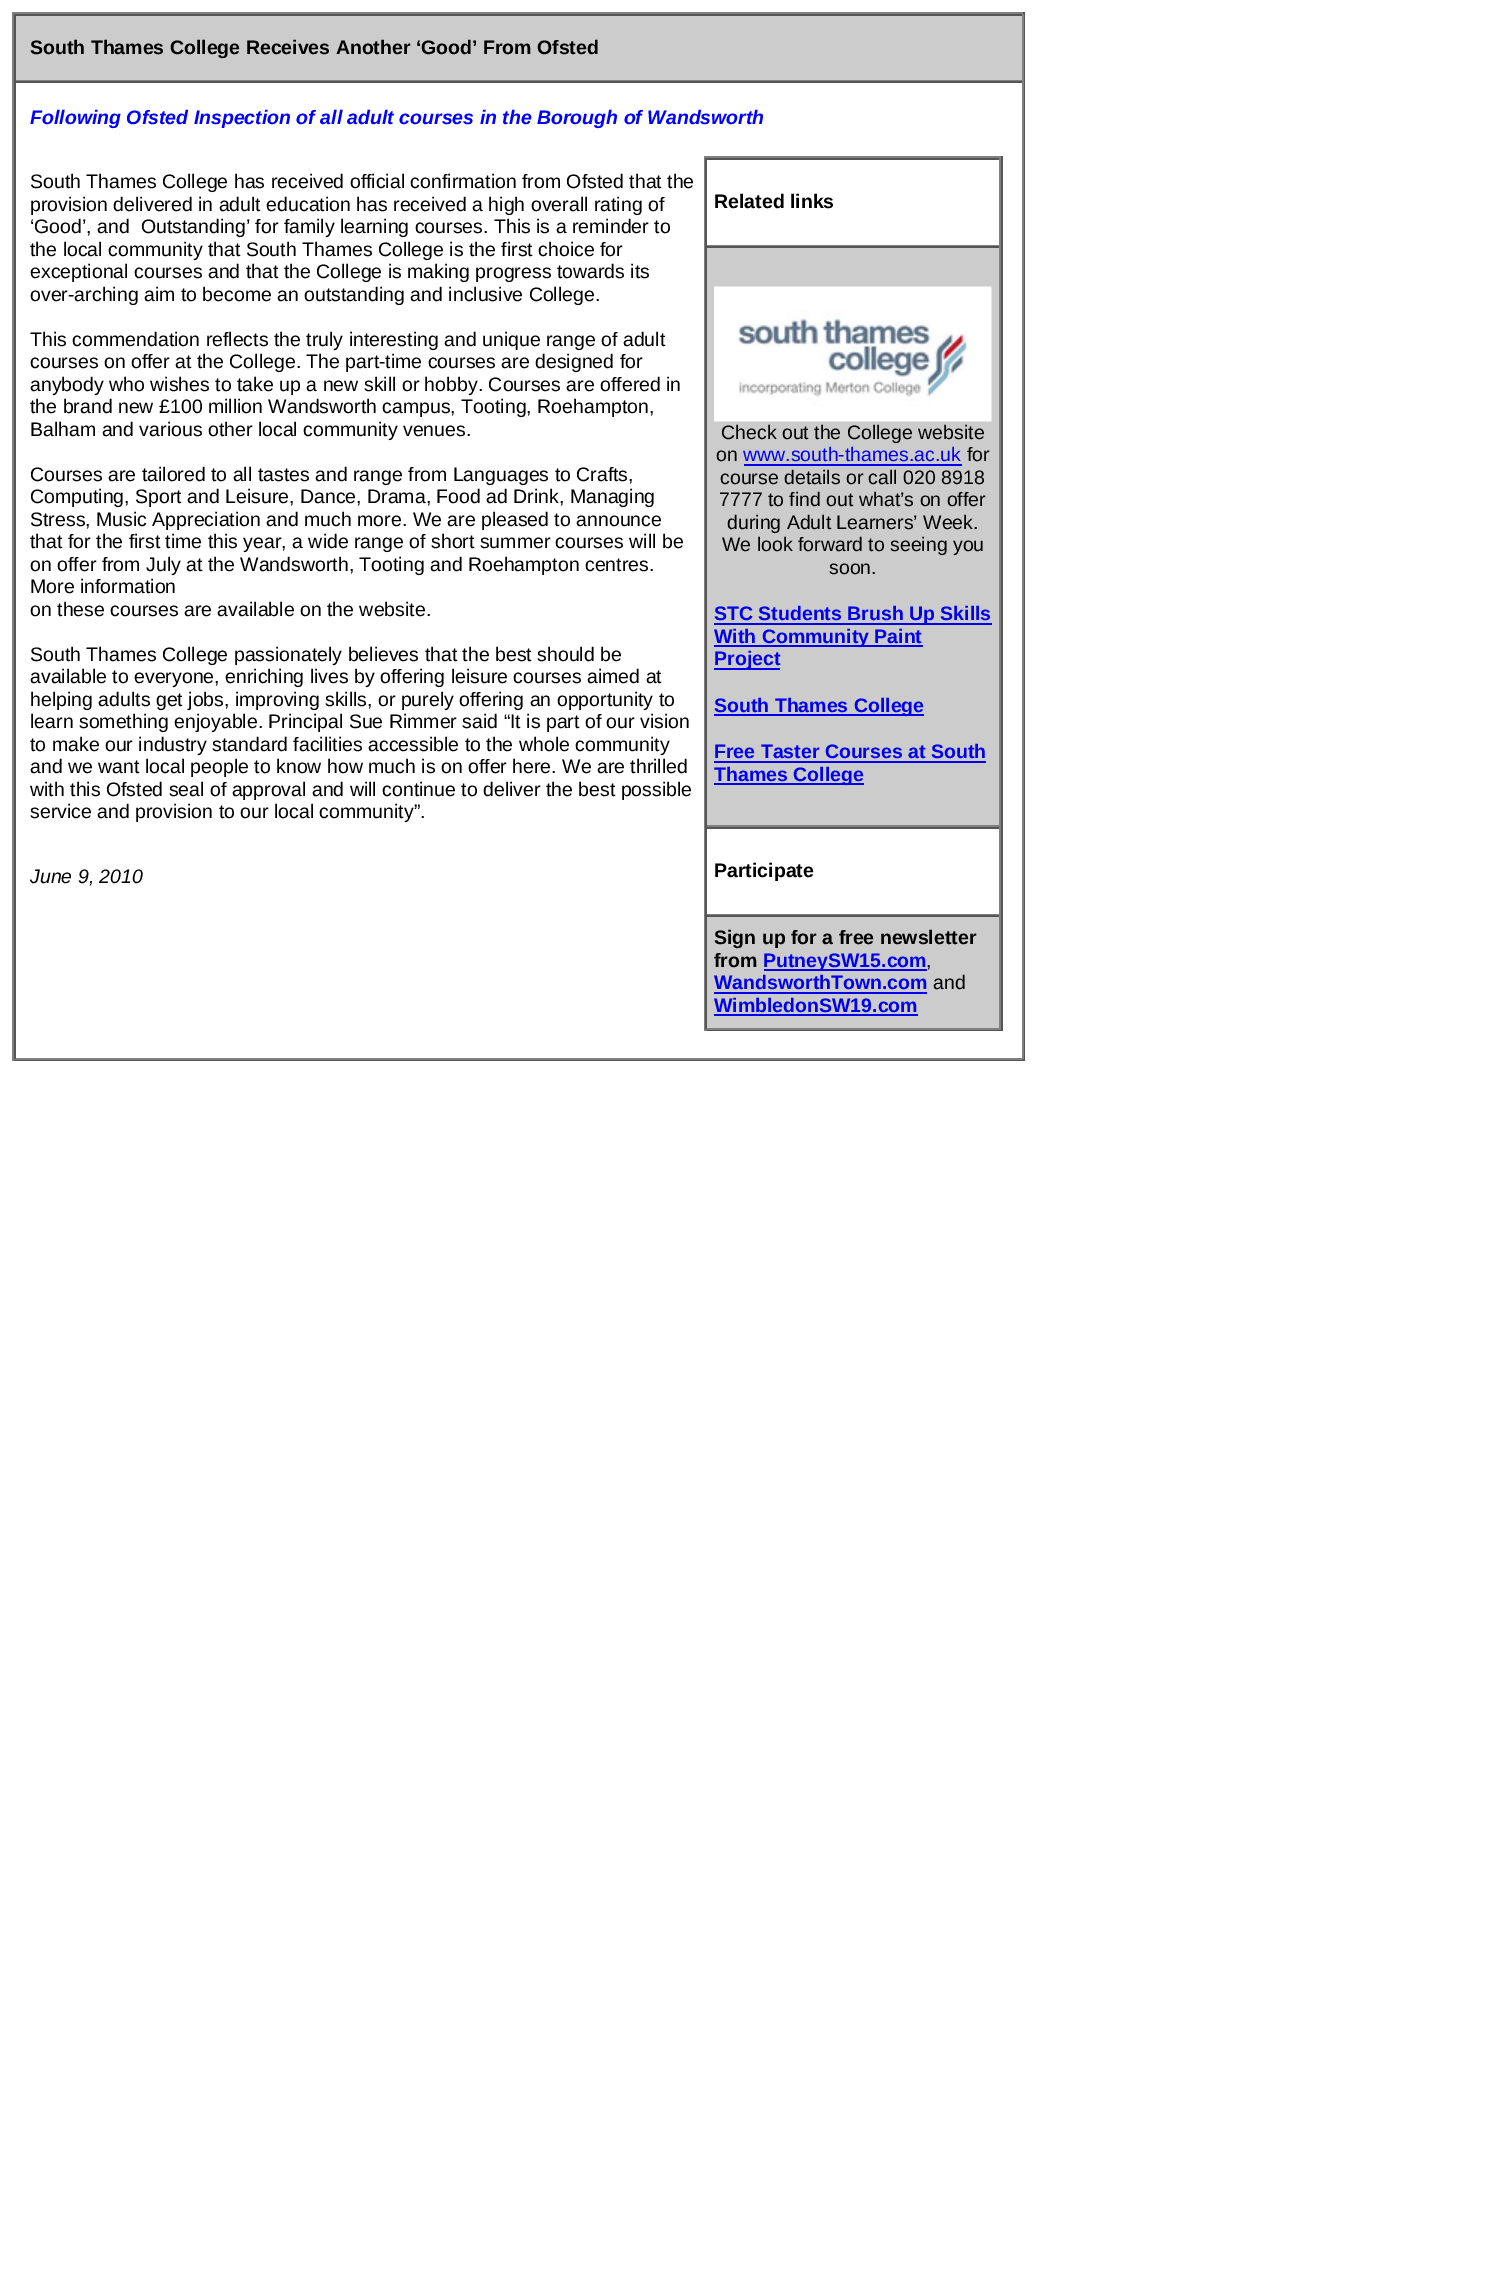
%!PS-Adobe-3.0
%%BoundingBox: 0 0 1493 2276
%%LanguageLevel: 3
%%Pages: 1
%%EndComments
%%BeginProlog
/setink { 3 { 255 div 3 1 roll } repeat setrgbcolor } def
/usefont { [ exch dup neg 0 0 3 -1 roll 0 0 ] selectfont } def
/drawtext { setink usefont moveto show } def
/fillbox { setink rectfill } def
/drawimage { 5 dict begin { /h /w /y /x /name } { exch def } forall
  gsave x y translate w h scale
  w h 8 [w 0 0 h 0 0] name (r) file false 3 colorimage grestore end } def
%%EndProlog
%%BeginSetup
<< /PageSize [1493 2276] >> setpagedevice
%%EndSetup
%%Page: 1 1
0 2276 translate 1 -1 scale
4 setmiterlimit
0 0 1493 2276 255 255 255 fillbox
12 12 1013 2 128 128 128 fillbox
1023 12 2 1049 85 85 85 fillbox
12 1059 1013 2 85 85 85 fillbox
12 12 2 1049 128 128 128 fillbox
16 16 1006 64 204 204 204 fillbox
14 14 1009 2 85 85 85 fillbox
1022 14 2 67 128 128 128 fillbox
14 80 1009 1 128 128 128 fillbox
14 14 2 67 85 85 85 fillbox
(South Thames College Receives Another ‘Good’ From Ofsted) 30 54 /LiberationSans-Bold 19.5 0 0 0 drawtext
14 81 1009 2 85 85 85 fillbox
1022 81 2 978 128 128 128 fillbox
14 1058 1009 2 128 128 128 fillbox
14 81 2 978 85 85 85 fillbox
(Following Ofsted Inspection of all adult courses in the Borough of Wandsworth) 30 124 /LiberationSans-BoldItalic 19.5 0 0 255 drawtext
(South Thames College has received official confirmation from Ofsted that the) 30 188 /LiberationSans-Regular 19.5 0 0 0 drawtext
(provision delivered in adult education has received a high overall rating of) 30 211 /LiberationSans-Regular 19.5 0 0 0 drawtext
(‘Good’, and  Outstanding’ for family learning courses. This is a reminder to) 30 233 /LiberationSans-Regular 19.5 0 0 0 drawtext
(the local community that South Thames College is the first choice for) 30 256 /LiberationSans-Regular 19.5 0 0 0 drawtext
(exceptional courses and that the College is making progress towards its) 30 278 /LiberationSans-Regular 19.5 0 0 0 drawtext
(over-arching aim to become an outstanding and inclusive College.) 30 301 /LiberationSans-Regular 19.5 0 0 0 drawtext
(This commendation reflects the truly interesting and unique range of adult) 30 346 /LiberationSans-Regular 19.5 0 0 0 drawtext
(courses on offer at the College. The part-time courses are designed for) 30 368 /LiberationSans-Regular 19.5 0 0 0 drawtext
(anybody who wishes to take up a new skill or hobby. Courses are offered in) 30 391 /LiberationSans-Regular 19.5 0 0 0 drawtext
(the brand new £100 million Wandsworth campus, Tooting, Roehampton,) 30 413 /LiberationSans-Regular 19.5 0 0 0 drawtext
(Balham and various other local community venues.) 30 436 /LiberationSans-Regular 19.5 0 0 0 drawtext
(Courses are tailored to all tastes and range from Languages to Crafts,) 30 481 /LiberationSans-Regular 19.5 0 0 0 drawtext
(Computing, Sport and Leisure, Dance, Drama, Food ad Drink, Managing) 30 503 /LiberationSans-Regular 19.5 0 0 0 drawtext
(Stress, Music Appreciation and much more. We are pleased to announce) 30 526 /LiberationSans-Regular 19.5 0 0 0 drawtext
(that for the first time this year, a wide range of short summer courses will be) 30 548 /LiberationSans-Regular 19.5 0 0 0 drawtext
(on offer from July at the Wandsworth, Tooting and Roehampton centres.) 30 571 /LiberationSans-Regular 19.5 0 0 0 drawtext
(More information) 30 593 /LiberationSans-Regular 19.5 0 0 0 drawtext
(on these courses are available on the website.) 30 616 /LiberationSans-Regular 19.5 0 0 0 drawtext
(South Thames College passionately believes that the best should be) 30 661 /LiberationSans-Regular 19.5 0 0 0 drawtext
(available to everyone, enriching lives by offering leisure courses aimed at) 30 683 /LiberationSans-Regular 19.5 0 0 0 drawtext
(helping adults get jobs, improving skills, or purely offering an opportunity to) 30 706 /LiberationSans-Regular 19.5 0 0 0 drawtext
(learn something enjoyable. Principal Sue Rimmer said “It is part of our vision) 30 728 /LiberationSans-Regular 19.5 0 0 0 drawtext
(to make our industry standard facilities accessible to the whole community) 30 751 /LiberationSans-Regular 19.5 0 0 0 drawtext
(and we want local people to know how much is on offer here. We are thrilled) 30 773 /LiberationSans-Regular 19.5 0 0 0 drawtext
(with this Ofsted seal of approval and will continue to deliver the best possible) 30 796 /LiberationSans-Regular 19.5 0 0 0 drawtext
(service and provision to our local community”.) 30 818 /LiberationSans-Regular 19.5 0 0 0 drawtext
704 156 298 2 128 128 128 fillbox
1001 156 2 875 85 85 85 fillbox
704 1029 298 2 85 85 85 fillbox
704 156 2 875 128 128 128 fillbox
705 158 296 2 85 85 85 fillbox
999 158 2 88 128 128 128 fillbox
705 245 296 1 128 128 128 fillbox
705 158 2 88 85 85 85 fillbox
(Related links) 714 208 /LiberationSans-Bold 19.5 0 0 0 drawtext
707 248 292 577 204 204 204 fillbox
705 246 296 2 85 85 85 fillbox
999 246 2 581 128 128 128 fillbox
705 825 296 2 128 128 128 fillbox
705 246 2 581 85 85 85 fillbox
(assets/img1.rgb) 714 286 278 136 drawimage
(Check out the College website) 721 439 /LiberationSans-Regular 19.5 0 0 0 drawtext
(on) 716 461 /LiberationSans-Regular 19.5 0 0 0 drawtext
(www.south-thames.ac.uk) 743 461 /LiberationSans-Regular 19.5 0 0 238 drawtext
744 464 218 2 0 0 238 fillbox
(for) 967 461 /LiberationSans-Regular 19.5 0 0 0 drawtext
(course details or call 020 8918) 720 484 /LiberationSans-Regular 19.5 0 0 0 drawtext
(7777 to find out what’s on offer) 719 506 /LiberationSans-Regular 19.5 0 0 0 drawtext
(during Adult Learners’ Week.) 727 529 /LiberationSans-Regular 19.5 0 0 0 drawtext
(We look forward to seeing you) 722 551 /LiberationSans-Regular 19.5 0 0 0 drawtext
(soon.) 829 574 /LiberationSans-Regular 19.5 0 0 0 drawtext
714 623 278 2 0 0 238 fillbox
(STC Students Brush Up Skills) 714 620 /LiberationSans-Bold 19.5 0 0 238 drawtext
714 645 209 2 0 0 238 fillbox
(With Community Paint) 714 643 /LiberationSans-Bold 19.5 0 0 238 drawtext
714 668 66 2 0 0 238 fillbox
(Project) 714 665 /LiberationSans-Bold 19.5 0 0 238 drawtext
714 714 210 2 0 0 238 fillbox
(South Thames College) 714 712 /LiberationSans-Bold 19.5 0 0 238 drawtext
(Free Taster Courses at South) 714 758 /LiberationSans-Bold 19.5 0 0 238 drawtext
714 761 272 2 0 0 238 fillbox
714 783 150 2 0 0 238 fillbox
(Thames College) 714 781 /LiberationSans-Bold 19.5 0 0 238 drawtext
705 827 296 2 85 85 85 fillbox
999 827 2 88 128 128 128 fillbox
705 914 296 1 128 128 128 fillbox
705 827 2 88 85 85 85 fillbox
(Participate) 714 877 /LiberationSans-Bold 19.5 0 0 0 drawtext
707 917 292 111 204 204 204 fillbox
705 915 296 2 85 85 85 fillbox
999 915 2 114 128 128 128 fillbox
705 1028 296 2 128 128 128 fillbox
705 915 2 114 85 85 85 fillbox
(Sign up for a free newsletter) 714 944 /LiberationSans-Bold 19.5 0 0 0 drawtext
(from) 714 967 /LiberationSans-Bold 19.5 0 0 0 drawtext
764 969 163 2 0 0 238 fillbox
(PutneySW15.com) 763 967 /LiberationSans-Bold 19.5 0 0 238 drawtext
(,) 926 967 /LiberationSans-Regular 19.5 0 0 0 drawtext
(WandsworthTown.com) 714 989 /LiberationSans-Bold 19.5 0 0 238 drawtext
714 992 213 2 0 0 238 fillbox
(and) 933 989 /LiberationSans-Regular 19.5 0 0 0 drawtext
(WimbledonSW19.com) 714 1012 /LiberationSans-Bold 19.5 0 0 238 drawtext
714 1014 204 2 0 0 238 fillbox
(June 9, 2010) 30 883 /LiberationSans-Italic 19.5 0 0 0 drawtext
showpage
%%EOF
